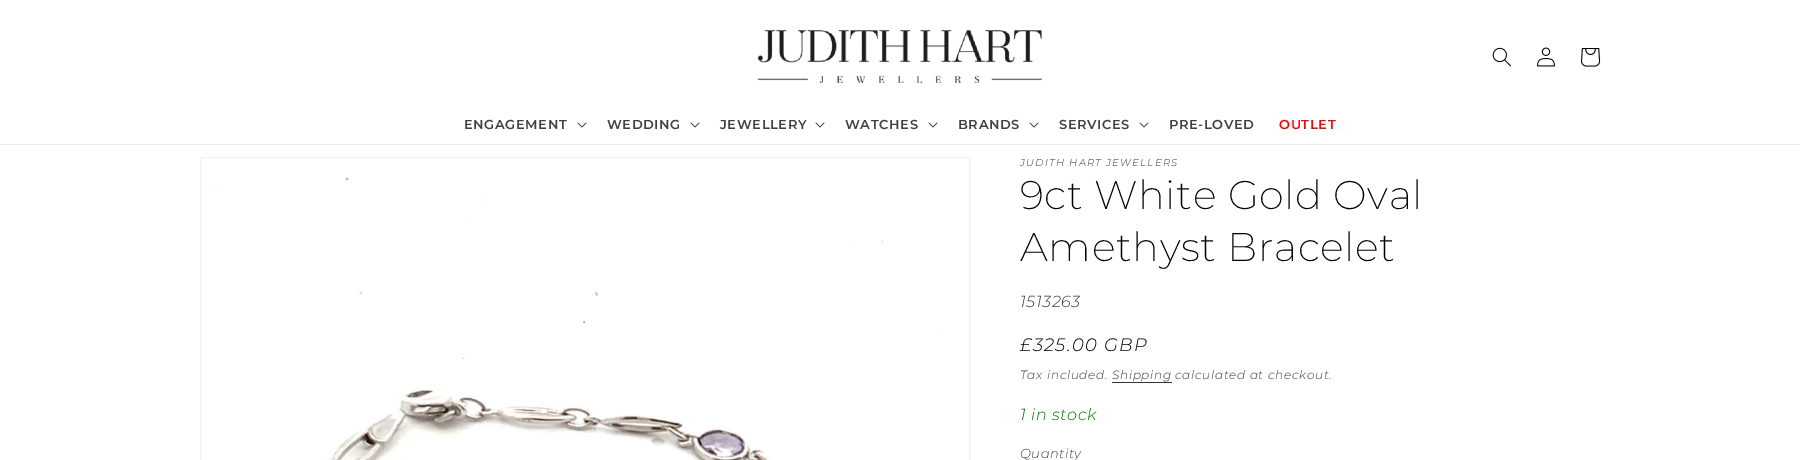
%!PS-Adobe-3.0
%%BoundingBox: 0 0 1800 460
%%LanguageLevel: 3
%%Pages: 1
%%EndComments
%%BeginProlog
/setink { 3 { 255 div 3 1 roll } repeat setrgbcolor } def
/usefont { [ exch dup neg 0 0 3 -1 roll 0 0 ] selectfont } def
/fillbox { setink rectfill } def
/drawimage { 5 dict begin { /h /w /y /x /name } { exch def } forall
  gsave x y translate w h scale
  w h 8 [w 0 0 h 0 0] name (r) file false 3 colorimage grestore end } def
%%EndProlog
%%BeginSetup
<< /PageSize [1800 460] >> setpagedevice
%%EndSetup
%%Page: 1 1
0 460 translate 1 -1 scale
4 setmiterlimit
0 0 1800 460 255 255 255 fillbox
0 144 1800 1 235 235 235 fillbox
(assets/img1.rgb) 757 30 285 53 drawimage
(assets/img2.rgb) 1492 47 19 20 drawimage
(assets/img3.rgb) 1537 47 18 20 drawimage
(assets/img4.rgb) 1581 48 20 19 drawimage
/Montserrat-SemiBold 13 usefont
64 64 64 setink
464 129 moveto 0.6 0 (ENGAGEMENT) ashow
(assets/img5.rgb) 577 122 10 6 drawimage
607 129 moveto 0.6 0 (WEDDING) ashow
(assets/img5.rgb) 690 122 10 6 drawimage
720 129 moveto 0.6 0 (JEWELLERY) ashow
(assets/img5.rgb) 815 122 10 6 drawimage
845 129 moveto 0.6 0 (WATCHES) ashow
(assets/img5.rgb) 928 122 10 6 drawimage
958 129 moveto 0.6 0 (BRANDS) ashow
(assets/img5.rgb) 1029 122 10 6 drawimage
1059 129 moveto 0.6 0 (SERVICES) ashow
(assets/img5.rgb) 1139 122 10 6 drawimage
1169 129 moveto 0.6 0 (PRE-LOVED) ashow
255 0 0 setink
1279 129 moveto 0.6 0 (OUTLET) ashow
242 242 242 setink
200.5 157.5 769 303 rectstroke
(assets/img6.rgb) 212 177 732 283 drawimage
/Montserrat-LightItalic 10 usefont
64 64 64 setink
1020 166 moveto 1.3 0 (JUDITH HART JEWELLERS) ashow
/Montserrat-ExtraLight 40 usefont
0 0 0 setink
1020 209 moveto 0.6 0 (9ct White Gold Oval) ashow
1020 261 moveto 0.6 0 (Amethyst Bracelet) ashow
/Montserrat-LightItalic 16 usefont
64 64 64 setink
1020 307 moveto 0.6 0 (1513263) ashow
/Montserrat-LightItalic 18 usefont
0 0 0 setink
1020 351 moveto 1.3 0 (£325.00 GBP) ashow
/Montserrat-LightItalic 12 usefont
64 64 64 setink
1020 379 moveto 0.7 0 (Tax included.) ashow
54 54 54 setink
1112 379 moveto 0.7 0 (Shipping) ashow
1112 382 60 1 54 54 54 fillbox
64 64 64 setink
1175 379 moveto 0.7 0 (calculated at checkout.) ashow
/Montserrat-LightItalic 16 usefont
2 120 0 setink
1020 420 moveto 0.6 0 (1 in stock) ashow
/Montserrat-LightItalic 13 usefont
64 64 64 setink
1020 458 moveto 0.5 0 (Quantity) ashow
showpage
%%EOF
